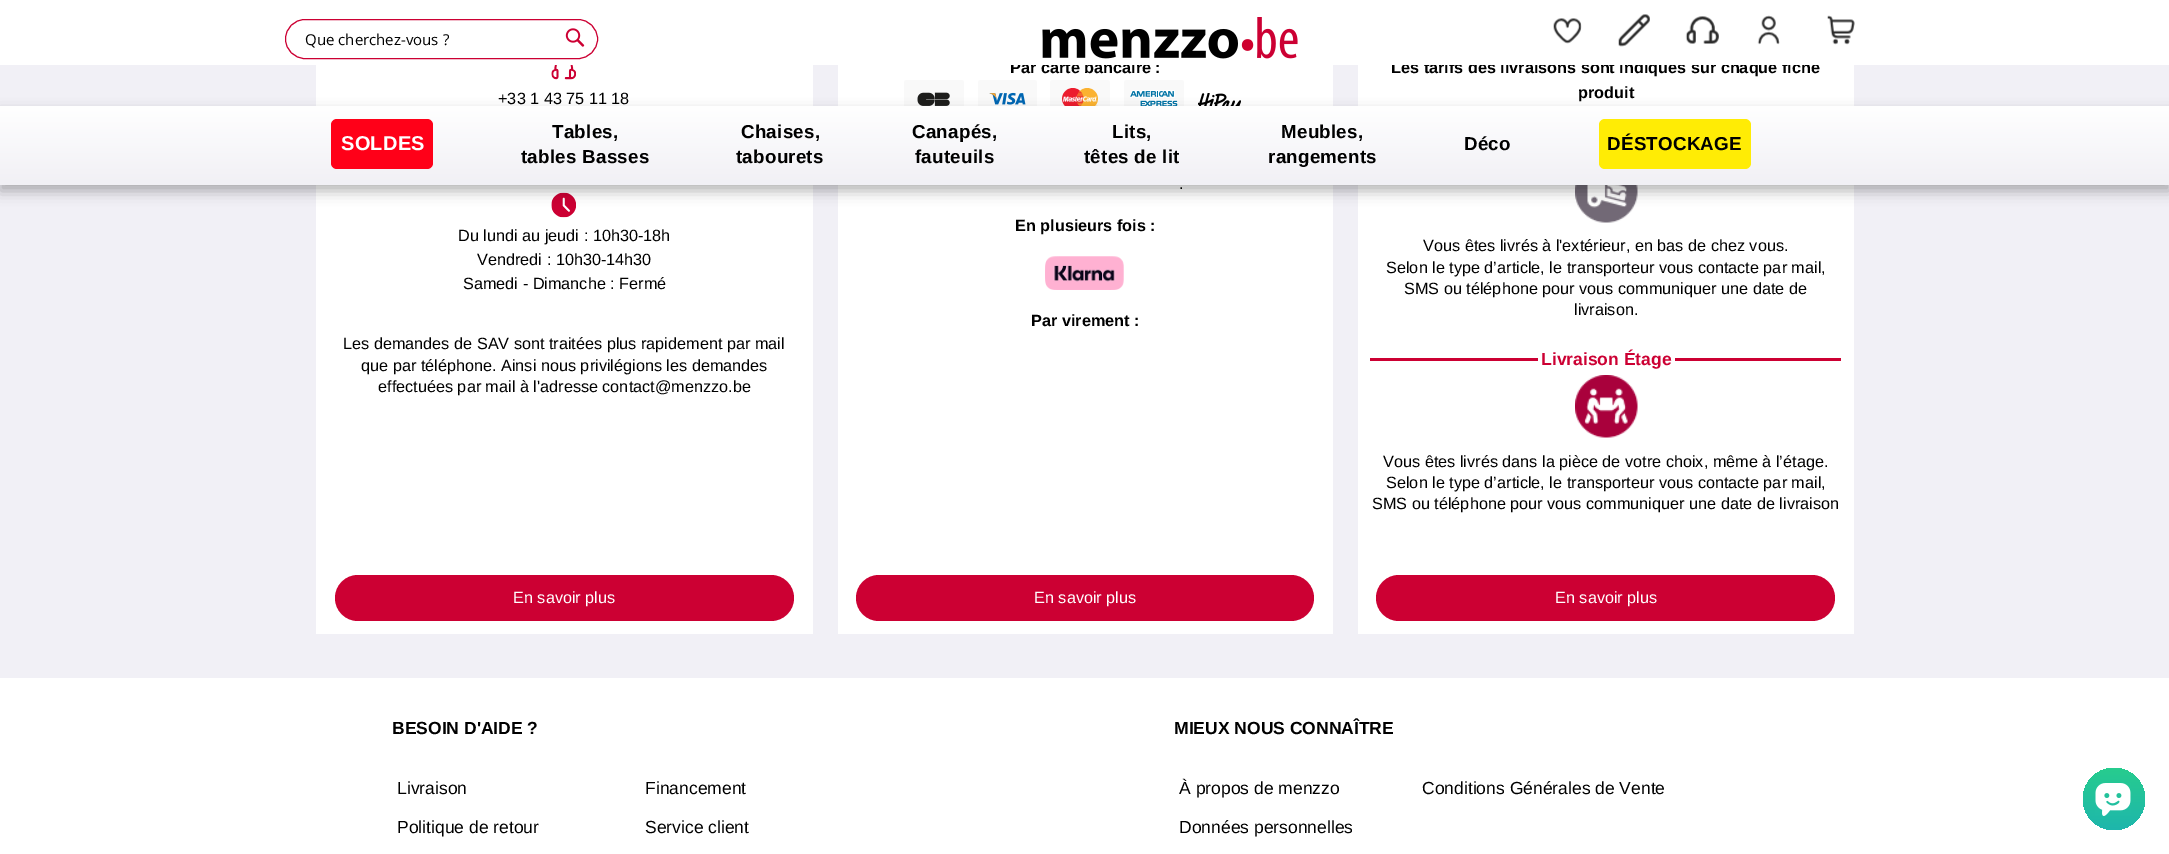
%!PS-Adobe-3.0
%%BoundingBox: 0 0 2169 854
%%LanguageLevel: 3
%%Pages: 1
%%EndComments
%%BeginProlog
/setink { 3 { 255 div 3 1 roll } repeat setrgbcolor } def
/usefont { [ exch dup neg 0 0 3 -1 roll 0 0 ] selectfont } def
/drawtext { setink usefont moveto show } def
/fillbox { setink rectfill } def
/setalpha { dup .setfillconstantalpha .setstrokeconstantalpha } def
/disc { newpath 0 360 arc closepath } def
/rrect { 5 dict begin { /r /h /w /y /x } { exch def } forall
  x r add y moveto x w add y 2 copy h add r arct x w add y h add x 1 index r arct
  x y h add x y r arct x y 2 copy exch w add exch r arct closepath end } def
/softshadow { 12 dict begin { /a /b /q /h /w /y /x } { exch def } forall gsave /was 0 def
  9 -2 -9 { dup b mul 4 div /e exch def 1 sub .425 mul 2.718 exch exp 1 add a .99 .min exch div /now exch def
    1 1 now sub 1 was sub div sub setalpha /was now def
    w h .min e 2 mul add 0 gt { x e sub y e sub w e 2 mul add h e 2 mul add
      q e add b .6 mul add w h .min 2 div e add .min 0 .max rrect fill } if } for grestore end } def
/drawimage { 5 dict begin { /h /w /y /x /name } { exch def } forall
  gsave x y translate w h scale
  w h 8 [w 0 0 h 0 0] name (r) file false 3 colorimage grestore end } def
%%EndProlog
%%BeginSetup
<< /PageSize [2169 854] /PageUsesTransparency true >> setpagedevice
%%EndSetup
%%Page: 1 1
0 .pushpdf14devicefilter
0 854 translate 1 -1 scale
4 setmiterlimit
0 0 2169 854 255 255 255 fillbox
0 65 2169 613 241 240 246 fillbox
838 65 495 569 255 255 255 fillbox
(Par carte bancaire :) 1010 73 /LiberationSans-Bold 16.25 0 0 0 drawtext
1358 65 496 569 255 255 255 fillbox
(Les tarifs des livraisons sont indiqués sur chaque fiche) 1391 73 /LiberationSans-Bold 16.25 0 0 0 drawtext
1010 61 809 4 255 255 255 fillbox
204 0 51 setink
285.5 19.5 312 39 19.5 rrect stroke
(Que cherchez-vous ?) 305 45 /OpenSans-Regular 15 0 0 0 drawtext
(assets/img1.rgb) 565 28 20 19 drawimage
(assets/img2.rgb) 1042 17 256 42 drawimage
(assets/img3.rgb) 1553 18 29 26 drawimage
(assets/img4.rgb) 1618 14 32 33 drawimage
(assets/img5.rgb) 1685 16 34 28 drawimage
(assets/img6.rgb) 1757 15 23 30 drawimage
(assets/img7.rgb) 1827 15 28 30 drawimage
316 65 497 569 255 255 255 fillbox
(assets/img8.rgb) 551 65 25 15 drawimage
(+33 1 43 75 11 18) 498 104 /LiberationSans-Regular 16.25 0 0 0 drawtext
(assets/img9.rgb) 551 192 25 26 drawimage
(Du lundi au jeudi : 10h30-18h) 458 241 /LiberationSans-Regular 16.25 0 0 0 drawtext
(Vendredi : 10h30-14h30) 477 265 /LiberationSans-Regular 16.25 0 0 0 drawtext
(Samedi - Dimanche : Fermé) 463 289 /LiberationSans-Regular 16.25 0 0 0 drawtext
(Les demandes de SAV sont traitées plus rapidement par mail) 343 349 /LiberationSans-Regular 16.25 0 0 0 drawtext
(que par téléphone. Ainsi nous privilégions les demandes) 361 371 /LiberationSans-Regular 16.25 0 0 0 drawtext
(effectuées par mail à l'adresse contact@menzzo.be) 378 392 /LiberationSans-Regular 16.25 0 0 0 drawtext
204 0 51 setink
335 575 459 46 23 rrect fill
(En savoir plus) 513 603 /LiberationSans-Regular 16.25 255 255 255 drawtext
(assets/img10.rgb) 904 80 60 26 drawimage
(assets/img11.rgb) 978 80 59 26 drawimage
(assets/img12.rgb) 1050 80 60 26 drawimage
(assets/img13.rgb) 1124 80 60 26 drawimage
(assets/img14.rgb) 1198 93 43 13 drawimage
(.) 1179 189 /LiberationSans-Regular 16.25 0 0 0 drawtext
(En plusieurs fois :) 1015 231 /LiberationSans-Bold 16.25 0 0 0 drawtext
(assets/img15.rgb) 1045 256 79 34 drawimage
(Par virement :) 1031 326 /LiberationSans-Bold 16.25 0 0 0 drawtext
204 0 51 setink
856 575 458 46 23 rrect fill
(En savoir plus) 1034 603 /LiberationSans-Regular 16.25 255 255 255 drawtext
(produit) 1578 98 /LiberationSans-Bold 16.25 0 0 0 drawtext
(assets/img16.rgb) 1575 185 63 38 drawimage
(Vous êtes livrés à l'extérieur, en bas de chez vous.) 1423 251 /LiberationSans-Regular 16.25 0 0 0 drawtext
(Selon le type d’article, le transporteur vous contacte par mail,) 1386 273 /LiberationSans-Regular 16.25 0 0 0 drawtext
(SMS ou téléphone pour vous communiquer une date de) 1404 294 /LiberationSans-Regular 16.25 0 0 0 drawtext
(livraison.) 1574 315 /LiberationSans-Regular 16.25 0 0 0 drawtext
1370 358 471 3 204 0 51 fillbox
1538 358 137 3 255 255 255 fillbox
(Livraison Étage) 1541 365 /LiberationSans-Bold 17.5 204 0 51 drawtext
(assets/img17.rgb) 1575 375 63 63 drawimage
(Vous êtes livrés dans la pièce de votre choix, même à l’étage.) 1383 467 /LiberationSans-Regular 16.25 0 0 0 drawtext
(Selon le type d’article, le transporteur vous contacte par mail,) 1386 488 /LiberationSans-Regular 16.25 0 0 0 drawtext
(SMS ou téléphone pour vous communiquer une date de livraison) 1372 509 /LiberationSans-Regular 16.25 0 0 0 drawtext
204 0 51 setink
1376 575 459 46 23 rrect fill
(En savoir plus) 1555 603 /LiberationSans-Regular 16.25 255 255 255 drawtext
(BESOIN D'AIDE ?) 392 734 /LiberationSans-Bold 17.5 0 0 0 drawtext
(Livraison) 397 794 /LiberationSans-Regular 17.5 0 0 0 drawtext
(Politique de retour) 397 833 /LiberationSans-Regular 17.5 0 0 0 drawtext
(Financement) 645 794 /LiberationSans-Regular 17.5 0 0 0 drawtext
(Service client) 645 833 /LiberationSans-Regular 17.5 0 0 0 drawtext
(MIEUX NOUS CONNAÎTRE) 1174 734 /LiberationSans-Bold 17.5 0 0 0 drawtext
(À propos de menzzo) 1179 794 /LiberationSans-Regular 17.5 0 0 0 drawtext
(Données personnelles) 1179 833 /LiberationSans-Regular 17.5 0 0 0 drawtext
(Conditions Générales de Vente) 1422 794 /LiberationSans-Regular 17.5 0 0 0 drawtext
0 113 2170 78 0 7 0.3 softshadow
gsave 0 106 moveto 2169 106 lineto 2169 185 lineto 0 185 lineto closepath clip newpath
<< /ShadingType 2 /ColorSpace /DeviceRGB /Coords [1085 106 1085 185] /Extend [true true] /Function << /FunctionType 2 /Domain [0 1] /C0 [1 1 1] /C1 [0.945 0.941 0.961] /N 1 >> >> shfill grestore
255 0 24 setink
331 119 102 50 6 rrect fill
/LiberationSans-Bold 20 usefont
255 255 255 setink
341 150 moveto 0.25 0 (SOLDES) ashow
/LiberationSans-Bold 18.75 usefont
0 0 0 setink
552 138 moveto 0.25 0 (Tables,) ashow
521 163 moveto 0.25 0 (tables Basses) ashow
741 138 moveto 0.25 0 (Chaises,) ashow
736 163 moveto 0.25 0 (tabourets) ashow
912 138 moveto 0.25 0 (Canapés,) ashow
915 163 moveto 0.25 0 (fauteuils) ashow
1112 138 moveto 0.25 0 (Lits,) ashow
1084 163 moveto 0.25 0 (têtes de lit) ashow
1281 138 moveto 0.25 0 (Meubles,) ashow
1268 163 moveto 0.25 0 (rangements) ashow
1464 150 moveto 0.25 0 (Déco) ashow
255 236 5 setink
1599 119 152 50 6 rrect fill
0 0 0 setink
1607 150 moveto 0.25 0 (DÉSTOCKAGE) ashow
gsave 2114 799 31 disc clip newpath
<< /ShadingType 2 /ColorSpace /DeviceRGB /Coords [2114 830 2114 768] /Extend [true true] /Function << /FunctionType 2 /Domain [0 1] /C0 [0.118 0.714 0.675] /C1 [0.153 0.8 0.557] /N 1 >> >> shfill grestore
(assets/img18.rgb) 2095 783 36 33 drawimage
.poppdf14devicefilter showpage
%%EOF
